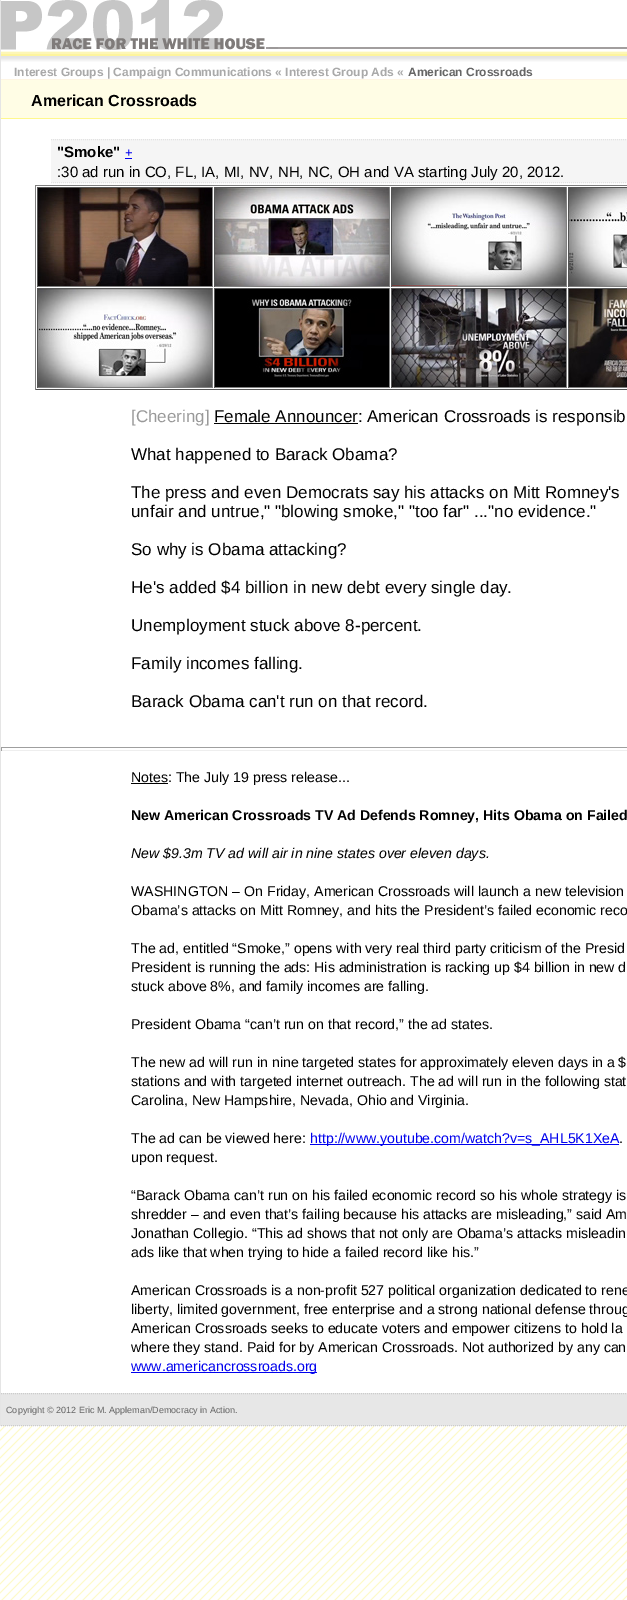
%!PS-Adobe-3.0
%%BoundingBox: 0 0 627 1600
%%LanguageLevel: 3
%%Pages: 1
%%EndComments
%%BeginProlog
/setink { 3 { 255 div 3 1 roll } repeat setrgbcolor } def
/usefont { [ exch dup neg 0 0 3 -1 roll 0 0 ] selectfont } def
/drawtext { setink usefont moveto show } def
/fillbox { setink rectfill } def
/drawimage { 5 dict begin { /h /w /y /x /name } { exch def } forall
  gsave x y translate w h scale
  w h 8 [w 0 0 h 0 0] name (r) file false 3 colorimage grestore end } def
%%EndProlog
%%BeginSetup
<< /PageSize [627 1600] >> setpagedevice
%%EndSetup
%%Page: 1 1
0 1600 translate 1 -1 scale
4 setmiterlimit
0 0 627 1600 255 255 255 fillbox
(assets/img1.rgb) 0 1426 627 174 drawimage
0 0 1 1426 229 229 229 fillbox
(assets/img2.rgb) 1 0 626 62 drawimage
(Interest Groups | Campaign Communications « Interest Group Ads «) 14 76 /LiberationSans-Bold 12 169 169 169 drawtext
(American Crossroads) 408 76 /LiberationSans-Bold 12 102 102 102 drawtext
1 80 626 38 255 253 229 fillbox
1 79 626 1 254 245 227 fillbox
1 118 626 1 255 248 141 fillbox
(American Crossroads) 31 106 /LiberationSans-Bold 16 0 0 0 drawtext
51 139 576 44 245 245 245 fillbox
226 226 226 setink
[1 1] 0 setdash
51 139.5 moveto 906 139.5 lineto stroke
51 182.5 moveto 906 182.5 lineto stroke
("Smoke") 57 157 /LiberationSans-Bold 15 0 0 0 drawtext
(+) 125 157 /LiberationSans-Regular 13 0 0 238 drawtext
125 158 7 1 0 0 238 fillbox
(:30 ad run in CO, FL, IA, MI, NV, NH, NC, OH and VA starting July 20, 2012.) 57 177 /LiberationSans-Regular 15 0 0 0 drawtext
35 185 592 1 128 128 128 fillbox
35 389 592 1 85 85 85 fillbox
35 185 1 205 128 128 128 fillbox
37 187 176 1 85 85 85 fillbox
212 187 1 100 128 128 128 fillbox
37 286 176 1 128 128 128 fillbox
37 187 1 100 85 85 85 fillbox
(assets/img3.rgb) 38 188 174 98 drawimage
214 187 176 1 85 85 85 fillbox
389 187 1 100 128 128 128 fillbox
214 286 176 1 128 128 128 fillbox
214 187 1 100 85 85 85 fillbox
(assets/img4.rgb) 215 188 174 98 drawimage
391 187 176 1 85 85 85 fillbox
566 187 1 100 128 128 128 fillbox
391 286 176 1 128 128 128 fillbox
391 187 1 100 85 85 85 fillbox
(assets/img5.rgb) 392 188 174 98 drawimage
568 187 59 1 85 85 85 fillbox
568 286 59 1 128 128 128 fillbox
568 187 1 100 85 85 85 fillbox
(assets/img6.rgb) 569 188 58 98 drawimage
37 288 176 1 85 85 85 fillbox
212 288 1 100 128 128 128 fillbox
37 387 176 1 128 128 128 fillbox
37 288 1 100 85 85 85 fillbox
(assets/img7.rgb) 38 289 174 98 drawimage
214 288 176 1 85 85 85 fillbox
389 288 1 100 128 128 128 fillbox
214 387 176 1 128 128 128 fillbox
214 288 1 100 85 85 85 fillbox
(assets/img8.rgb) 215 289 174 98 drawimage
391 288 176 1 85 85 85 fillbox
566 288 1 100 128 128 128 fillbox
391 387 176 1 128 128 128 fillbox
391 288 1 100 85 85 85 fillbox
(assets/img9.rgb) 392 289 174 98 drawimage
568 288 59 1 85 85 85 fillbox
568 387 59 1 128 128 128 fillbox
568 288 1 100 85 85 85 fillbox
(assets/img10.rgb) 569 289 58 98 drawimage
([Cheering]) 131 422 /LiberationSans-Regular 17 153 153 153 drawtext
214 423 144 1 0 0 0 fillbox
(Female Announcer: American Crossroads is responsib) 214 422 /LiberationSans-Regular 17 0 0 0 drawtext
(What happened to Barack Obama?) 131 460 /LiberationSans-Regular 17 0 0 0 drawtext
(The press and even Democrats say his attacks on Mitt Romney's) 131 498 /LiberationSans-Regular 17 0 0 0 drawtext
(unfair and untrue," "blowing smoke," "too far" ..."no evidence.") 131 517 /LiberationSans-Regular 17 0 0 0 drawtext
(So why is Obama attacking?) 131 555 /LiberationSans-Regular 17 0 0 0 drawtext
(He's added $4 billion in new debt every single day.) 131 593 /LiberationSans-Regular 17 0 0 0 drawtext
(Unemployment stuck above 8-percent.) 131 631 /LiberationSans-Regular 17 0 0 0 drawtext
(Family incomes falling.) 131 669 /LiberationSans-Regular 17 0 0 0 drawtext
(Barack Obama can't run on that record.) 131 707 /LiberationSans-Regular 17 0 0 0 drawtext
1 747 626 1 159 159 159 fillbox
1 750 626 1 238 238 238 fillbox
1 747 1 4 159 159 159 fillbox
131 783 37 1 0 0 0 fillbox
(Notes: The July 19 press release...) 131 782 /LiberationSans-Regular 14.15 0 0 0 drawtext
(New American Crossroads TV Ad Defends Romney, Hits Obama on Failed) 131 820 /LiberationSans-Bold 14.15 0 0 0 drawtext
(New $9.3m TV ad will air in nine states over eleven days.) 131 858 /LiberationSans-Italic 14.15 0 0 0 drawtext
(WASHINGTON – On Friday, American Crossroads will launch a new television) 131 896 /LiberationSans-Regular 14.15 0 0 0 drawtext
(Obama’s attacks on Mitt Romney, and hits the President’s failed economic reco) 131 915 /LiberationSans-Regular 14.15 0 0 0 drawtext
(The ad, entitled “Smoke,” opens with very real third party criticism of the Presid) 131 953 /LiberationSans-Regular 14.15 0 0 0 drawtext
(President is running the ads: His administration is racking up $4 billion in new d) 131 972 /LiberationSans-Regular 14.15 0 0 0 drawtext
(stuck above 8%, and family incomes are falling.) 131 991 /LiberationSans-Regular 14.15 0 0 0 drawtext
(President Obama “can’t run on that record,” the ad states.) 131 1029 /LiberationSans-Regular 14.15 0 0 0 drawtext
(The new ad will run in nine targeted states for approximately eleven days in a $) 131 1067 /LiberationSans-Regular 14.15 0 0 0 drawtext
(stations and with targeted internet outreach. The ad will run in the following stat) 131 1086 /LiberationSans-Regular 14.15 0 0 0 drawtext
(Carolina, New Hampshire, Nevada, Ohio and Virginia.) 131 1105 /LiberationSans-Regular 14.15 0 0 0 drawtext
(The ad can be viewed here:) 131 1143 /LiberationSans-Regular 14.15 0 0 0 drawtext
310 1144 309 1 0 0 238 fillbox
(http://www.youtube.com/watch?v=s_AHL5K1XeA) 310 1143 /LiberationSans-Regular 14.15 0 0 238 drawtext
(.) 619 1143 /LiberationSans-Regular 14.15 0 0 0 drawtext
(upon request.) 131 1162 /LiberationSans-Regular 14.15 0 0 0 drawtext
(“Barack Obama can’t run on his failed economic record so his whole strategy is) 131 1200 /LiberationSans-Regular 14.15 0 0 0 drawtext
(shredder – and even that’s failing because his attacks are misleading,” said Am) 131 1219 /LiberationSans-Regular 14.15 0 0 0 drawtext
(Jonathan Collegio. “This ad shows that not only are Obama’s attacks misleadin) 131 1238 /LiberationSans-Regular 14.15 0 0 0 drawtext
(ads like that when trying to hide a failed record like his.”) 131 1257 /LiberationSans-Regular 14.15 0 0 0 drawtext
(American Crossroads is a non-profit 527 political organization dedicated to rene) 131 1295 /LiberationSans-Regular 14.15 0 0 0 drawtext
(liberty, limited government, free enterprise and a strong national defense throug) 131 1314 /LiberationSans-Regular 14.15 0 0 0 drawtext
(American Crossroads seeks to educate voters and empower citizens to hold la) 131 1333 /LiberationSans-Regular 14.15 0 0 0 drawtext
(where they stand. Paid for by American Crossroads. Not authorized by any can) 131 1352 /LiberationSans-Regular 14.15 0 0 0 drawtext
131 1372 186 1 0 0 238 fillbox
(www.americancrossroads.org) 131 1371 /LiberationSans-Regular 14.15 0 0 238 drawtext
1 1393 626 33 231 231 231 fillbox
204 204 204 setink
1 1393.5 moveto 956 1393.5 lineto stroke
1 1425.5 moveto 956 1425.5 lineto stroke
(Copyright © 2012 Eric M. Appleman/Democracy in Action.) 6 1413 /LiberationSans-Regular 9 102 102 102 drawtext
showpage
%%EOF
